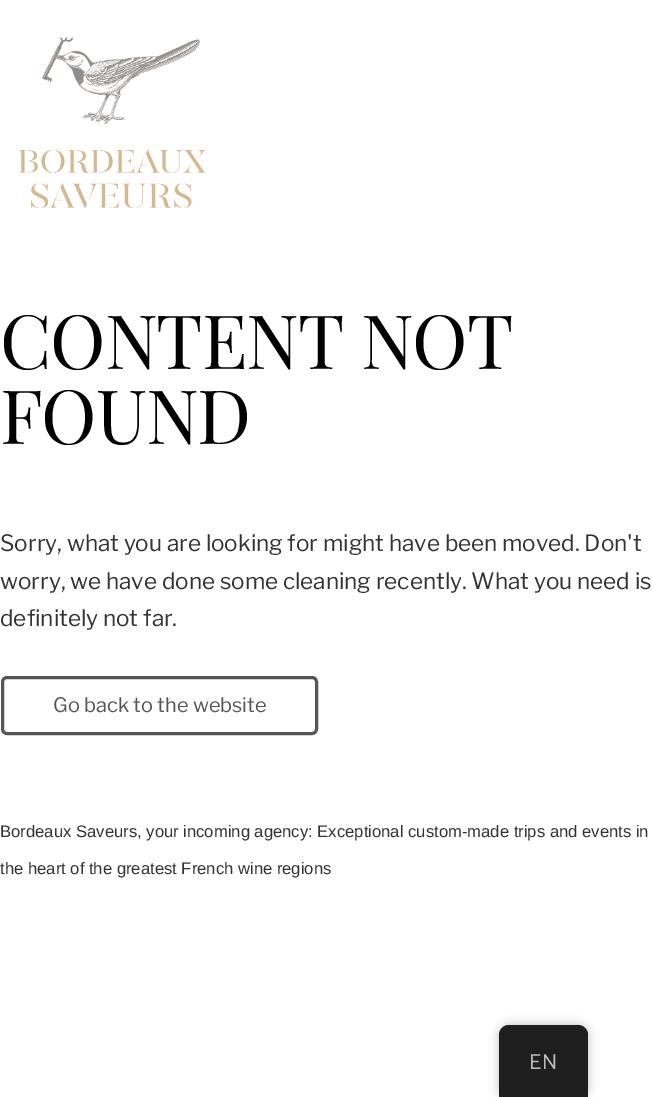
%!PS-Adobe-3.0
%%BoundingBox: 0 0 652 1097
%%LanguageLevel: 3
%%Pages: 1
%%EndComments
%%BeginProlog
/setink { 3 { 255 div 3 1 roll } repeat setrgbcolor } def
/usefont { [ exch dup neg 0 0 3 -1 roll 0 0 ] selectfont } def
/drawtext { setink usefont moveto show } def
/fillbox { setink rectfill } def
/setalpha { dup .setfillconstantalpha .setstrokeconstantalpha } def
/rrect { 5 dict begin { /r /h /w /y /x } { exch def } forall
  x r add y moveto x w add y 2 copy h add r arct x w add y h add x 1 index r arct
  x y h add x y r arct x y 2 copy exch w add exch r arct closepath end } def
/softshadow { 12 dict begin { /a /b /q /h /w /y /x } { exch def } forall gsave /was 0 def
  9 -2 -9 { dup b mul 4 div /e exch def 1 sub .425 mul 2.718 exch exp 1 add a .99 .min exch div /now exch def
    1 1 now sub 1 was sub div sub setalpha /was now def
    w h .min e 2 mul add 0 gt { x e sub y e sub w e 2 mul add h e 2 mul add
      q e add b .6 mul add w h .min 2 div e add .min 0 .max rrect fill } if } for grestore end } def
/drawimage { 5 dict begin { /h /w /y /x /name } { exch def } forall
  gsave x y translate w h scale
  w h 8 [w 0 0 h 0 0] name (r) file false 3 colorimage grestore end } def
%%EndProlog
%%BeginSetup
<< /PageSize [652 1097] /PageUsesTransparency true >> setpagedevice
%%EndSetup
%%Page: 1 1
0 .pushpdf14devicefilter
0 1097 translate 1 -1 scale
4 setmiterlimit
0 0 652 1097 255 255 255 fillbox
(assets/img1.rgb) 19 37 187 171 drawimage
/PlayfairDisplay-Regular 75 usefont
1 1 1 setink
0 369 moveto -1.25 0 (CONTENT NOT) ashow
0 444 moveto -1.25 0 (FOUND) ashow
(Sorry, what you are looking for might have been moved. Don't) 0 551 /LibreFranklin-Regular 22.5 51 51 51 drawtext
(worry, we have done some cleaning recently. What you need is) 0 589 /LibreFranklin-Regular 22.5 51 51 51 drawtext
(definitely not far.) 0 626 /LibreFranklin-Regular 22.5 51 51 51 drawtext
86 86 86 setink
3 setlinewidth
2.5 677.5 314 56 4.5 rrect stroke
(Go back to the website) 53 712 /LibreFranklin-Regular 20 86 86 86 drawtext
(Bordeaux Saveurs, your incoming agency: Exceptional custom-made trips and events in) 0 837 /LiberationSans-Regular 16.65 51 51 51 drawtext
(the heart of the greatest French wine regions) 0 874 /LiberationSans-Regular 16.65 51 51 51 drawtext
0 0 0 setink
499 1025 89 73 10 5 0.25 softshadow
30 30 30 setink
509 1025 moveto 578 1025 lineto 583.5 1025 588 1029.5 588 1035 curveto 588 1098 lineto 499 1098 lineto 499 1035 lineto 499 1029.5 503.5 1025 509 1025 curveto closepath fill
(EN) 529 1069 /LibreFranklin-Regular 20 189 189 189 drawtext
.poppdf14devicefilter showpage
%%EOF
